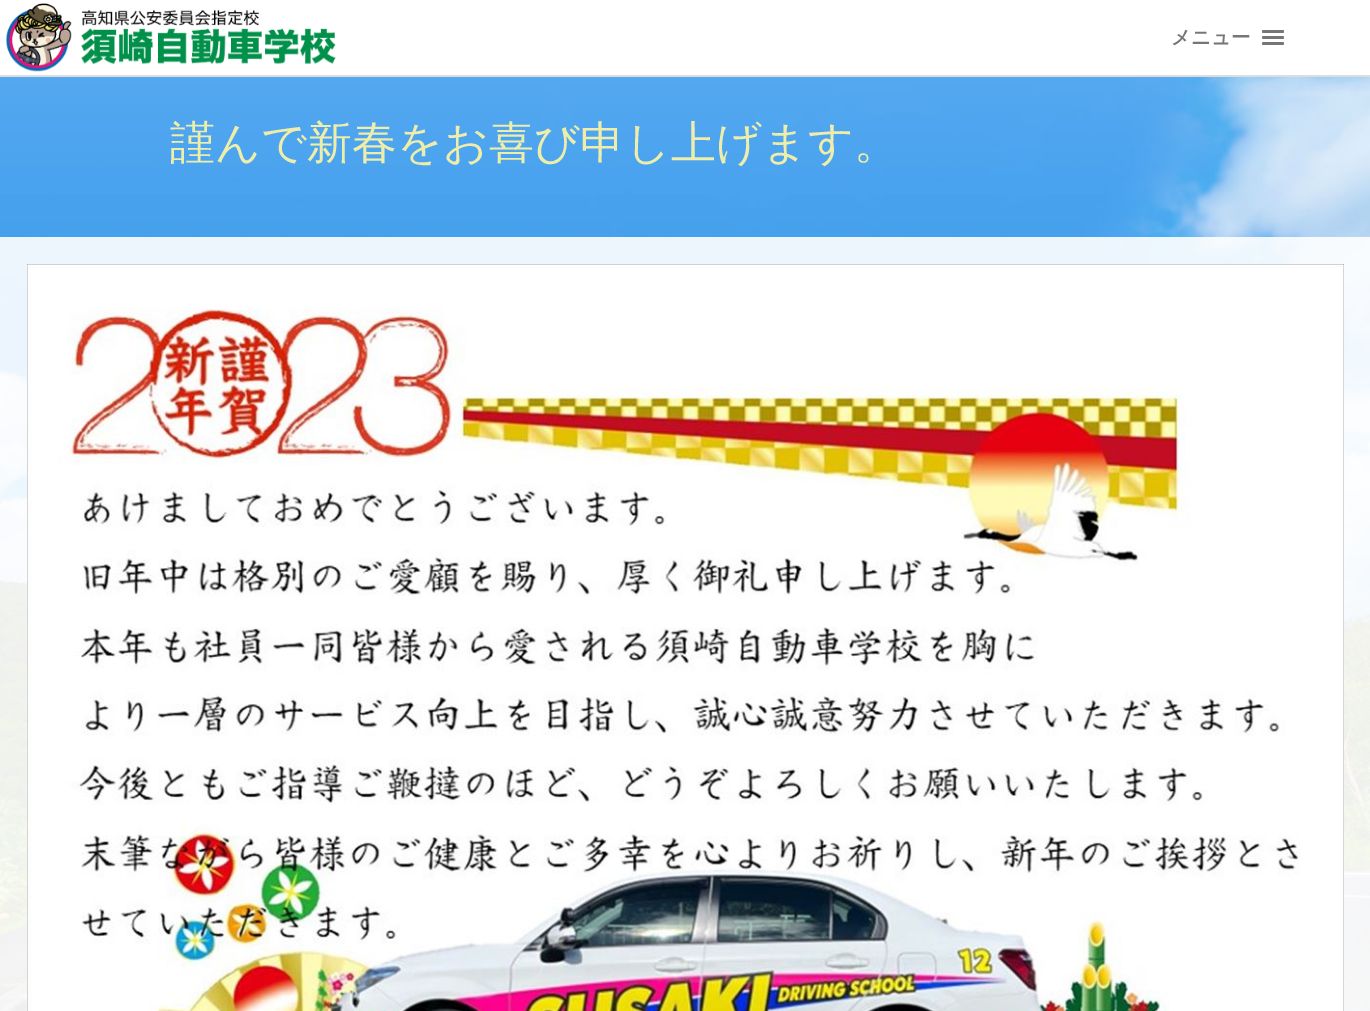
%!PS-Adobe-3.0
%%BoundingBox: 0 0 1370 1011
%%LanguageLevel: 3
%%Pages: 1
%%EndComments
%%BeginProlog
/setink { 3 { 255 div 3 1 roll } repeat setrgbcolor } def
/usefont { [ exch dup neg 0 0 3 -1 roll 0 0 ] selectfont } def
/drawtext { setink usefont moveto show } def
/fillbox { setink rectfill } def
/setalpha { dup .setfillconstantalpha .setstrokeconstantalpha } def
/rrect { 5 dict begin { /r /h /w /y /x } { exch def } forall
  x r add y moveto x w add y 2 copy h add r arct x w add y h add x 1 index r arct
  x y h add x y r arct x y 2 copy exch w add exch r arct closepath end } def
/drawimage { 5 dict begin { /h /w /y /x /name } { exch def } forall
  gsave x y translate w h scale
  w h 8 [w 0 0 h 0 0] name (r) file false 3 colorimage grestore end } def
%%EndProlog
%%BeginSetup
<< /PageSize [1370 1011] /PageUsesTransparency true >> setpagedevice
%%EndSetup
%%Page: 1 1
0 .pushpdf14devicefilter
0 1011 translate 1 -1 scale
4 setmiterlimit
0 0 1370 1011 255 255 255 fillbox
(assets/img1.rgb) 0 77 1370 934 drawimage
0 75 1370 2 221 221 221 fillbox
(assets/img2.rgb) 6 3 330 69 drawimage
(メニュー) 1171 44 /WenQuanYiZenHei-Bold 19.5 118 118 118 drawtext
1262 30 22 3 1.5 rrect fill
1262 36 22 3 1.5 rrect fill
1262 42 22 3 1.5 rrect fill
(謹んで新春をお喜び申し上げます。) 170 158 /WenQuanYiZenHei-Medium 45 238 238 170 drawtext
0.9 setalpha
0 237 1370 774 255 255 255 fillbox
1 setalpha
(assets/img3.rgb) 27 264 1317 747 drawimage
.poppdf14devicefilter showpage
%%EOF
